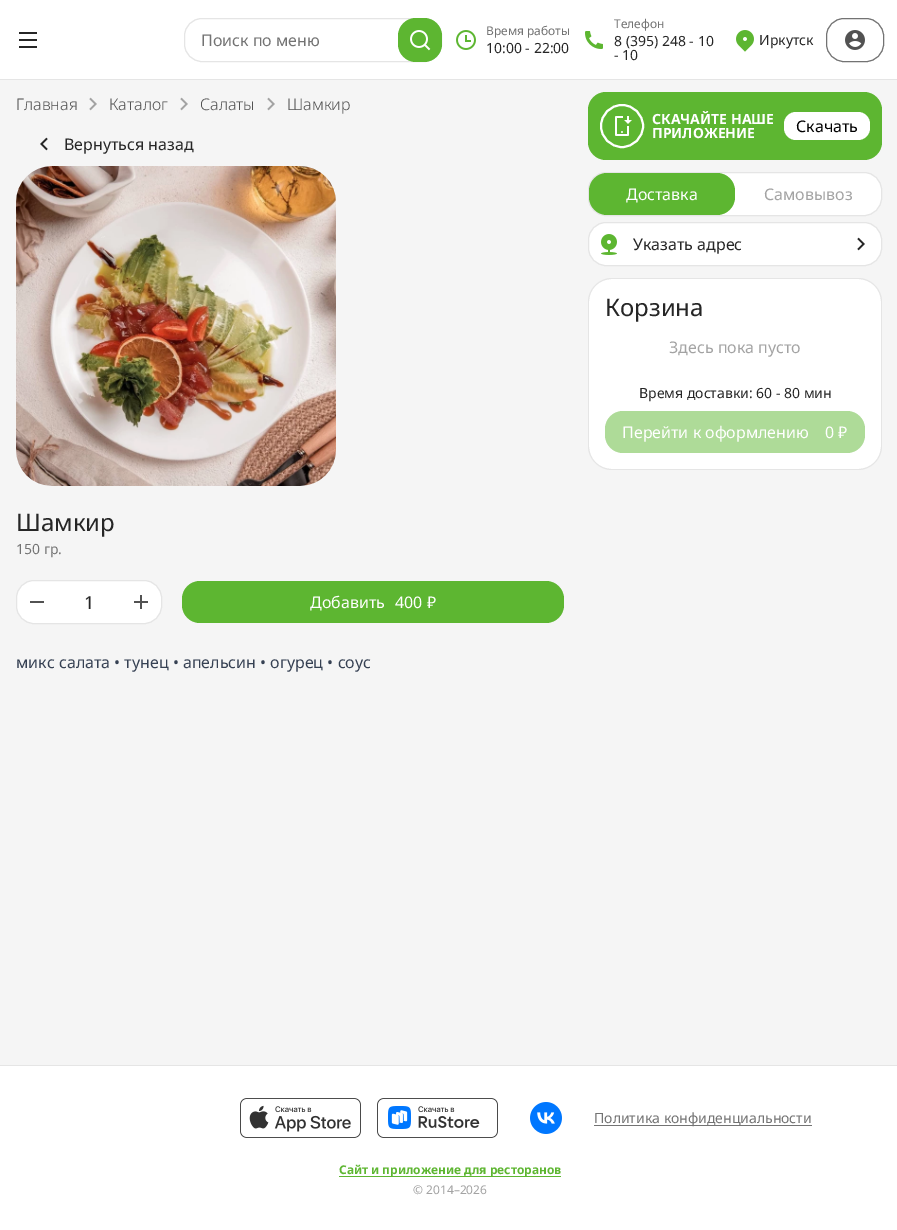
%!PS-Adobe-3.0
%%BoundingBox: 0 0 897 1230
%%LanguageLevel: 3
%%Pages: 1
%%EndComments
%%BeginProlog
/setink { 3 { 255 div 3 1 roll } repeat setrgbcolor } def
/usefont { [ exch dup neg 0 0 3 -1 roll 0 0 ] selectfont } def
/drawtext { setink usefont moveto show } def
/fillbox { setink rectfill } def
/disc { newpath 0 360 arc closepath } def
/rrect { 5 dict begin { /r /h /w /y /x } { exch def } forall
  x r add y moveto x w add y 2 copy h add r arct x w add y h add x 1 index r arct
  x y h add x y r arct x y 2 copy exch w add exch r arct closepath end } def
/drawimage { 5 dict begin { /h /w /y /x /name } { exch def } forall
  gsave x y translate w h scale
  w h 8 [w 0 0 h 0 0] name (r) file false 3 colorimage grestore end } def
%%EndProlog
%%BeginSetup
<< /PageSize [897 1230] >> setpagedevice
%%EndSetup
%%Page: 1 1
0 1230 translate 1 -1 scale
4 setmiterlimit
0 0 897 1230 245 245 245 fillbox
0 0 897 79 255 255 255 fillbox
0 79 897 1 229 229 229 fillbox
(assets/img1.rgb) 19 32 18 16 drawimage
184.5 18.5 257 43 17.5 rrect stroke
(Поиск по меню) 201 46 /NotoSans-Regular 16 115 115 115 drawtext
93 182 49 setink
398 18 44 44 18 rrect fill
(assets/img2.rgb) 410 30 21 21 drawimage
(assets/img3.rgb) 456 30 20 20 drawimage
(Время работы) 486 35 /NotoSans-Regular 12 115 115 115 drawtext
(10:00 - 22:00) 486 53 /NotoSans-Regular 14 38 38 38 drawtext
(assets/img4.rgb) 585 31 18 18 drawimage
(Телефон) 614 28 /NotoSans-Regular 12 115 115 115 drawtext
(8 \(395\) 248 - 10) 614 46 /NotoSans-Regular 14 38 38 38 drawtext
(- 10) 614 60 /NotoSans-Regular 14 38 38 38 drawtext
(assets/img5.rgb) 736 30 18 22 drawimage
(Иркутск) 759 45 /NotoSans-Regular 14 38 38 38 drawtext
115 115 115 setink
826.5 18.5 57 43 17.5 rrect stroke
(assets/img6.rgb) 845 30 20 20 drawimage
(Главная) 16 110 /NotoSans-Light 16 82 82 82 drawtext
(assets/img7.rgb) 89 97 8 14 drawimage
(Каталог) 109 110 /NotoSans-Light 16 82 82 82 drawtext
(assets/img7.rgb) 180 97 8 14 drawimage
(Салаты) 200 110 /NotoSans-Light 16 82 82 82 drawtext
(assets/img7.rgb) 267 97 8 14 drawimage
(Шамкир) 287 110 /NotoSans-Light 16 82 82 82 drawtext
(assets/img8.rgb) 40 137 8 14 drawimage
(Вернуться назад) 64 150 /NotoSans-Regular 16 38 38 38 drawtext
(assets/img9.rgb) 16 166 320 320 drawimage
(Шамкир) 16 531 /NotoSans-Regular 24 38 38 38 drawtext
(150 гр.) 16 554 /NotoSans-Regular 14 115 115 115 drawtext
255 255 255 setink
16.5 580.5 145 43 17.5 rrect gsave fill grestore
229 229 229 setink
stroke
30 601 14 2 82 82 82 fillbox
(1) 84 609 /NotoSans-Regular 18 38 38 38 drawtext
(assets/img10.rgb) 134 595 14 14 drawimage
93 182 49 setink
182 581 382 42 18 rrect fill
(Добавить) 310 608 /NotoSans-Regular 16 255 255 255 drawtext
(400 ₽) 395 608 /NotoSans-Regular 16 255 255 255 drawtext
(микс салата • тунец • апельсин • огурец • соус) 16 668 /NotoSans-Regular 16 54 65 83 drawtext
93 182 49 setink
588 92 294 68 18 rrect fill
255 255 255 setink
2 setlinewidth
622 126 21 disc stroke
(assets/img11.rgb) 615 116 17 20 drawimage
(СКАЧАЙТЕ НАШЕ) 652 124 /NotoSans-Bold 14 255 255 255 drawtext
(ПРИЛОЖЕНИЕ) 652 138 /NotoSans-Bold 14 255 255 255 drawtext
784 112 86 28 12 rrect fill
(Скачать) 796 132 /NotoSans-Regular 16 0 0 0 drawtext
255 255 255 setink
588.5 172.5 293 43 17.5 rrect gsave fill grestore
229 229 229 setink
1 setlinewidth
stroke
93 182 49 setink
589 173 146 42 18 rrect fill
(Доставка) 626 200 /NotoSans-Regular 16 255 255 255 drawtext
(Самовывоз) 764 200 /NotoSans-Regular 16 163 163 163 drawtext
255 255 255 setink
588.5 222.5 293 43 17.5 rrect gsave fill grestore
229 229 229 setink
stroke
(assets/img12.rgb) 601 234 16 21 drawimage
(Указать адрес) 633 250 /NotoSans-Regular 16 38 38 38 drawtext
(assets/img13.rgb) 857 237 8 14 drawimage
255 255 255 setink
612 279 moveto 858 279 lineto 870.5 279 881 289.5 881 302 curveto 881 375 lineto 589 375 lineto 589 302 lineto 589 289.5 599.5 279 612 279 curveto closepath fill
229 229 229 setink
612 278 moveto 858 278 lineto 871 278 882 289 882 302 curveto 882 375 lineto 588 375 lineto 588 302 lineto 588 289 599 278 612 278 curveto closepath 612 279 moveto 858 279 lineto 871 279 881 289 881 302 curveto 881 375 lineto 589 375 lineto 589 302 lineto 589 289 599 279 612 279 curveto closepath eofill
(Корзина) 605 316 /NotoSans-Regular 24 38 38 38 drawtext
(Здесь пока пусто) 669 353 /NotoSans-Regular 16 163 163 163 drawtext
255 255 255 setink
589 375 moveto 881 375 lineto 881 446 lineto 881 458.5 870.5 469 858 469 curveto 612 469 lineto 599.5 469 589 458.5 589 446 curveto closepath fill
229 229 229 setink
588 375 moveto 882 375 lineto 882 446 lineto 882 459 871 470 858 470 curveto 612 470 lineto 599 470 588 459 588 446 curveto closepath 589 375 moveto 881 375 lineto 881 446 lineto 881 459 871 469 858 469 curveto 612 469 lineto 599 469 589 459 589 446 curveto closepath eofill
(Время доставки: 60 - 80 мин) 639 398 /NotoSans-Regular 14 38 38 38 drawtext
174 219 152 setink
605 411 260 42 18 rrect fill
(Перейти к оформлению) 622 438 /NotoSans-Regular 16 255 255 255 drawtext
(0 ₽) 825 438 /NotoSans-Regular 16 255 255 255 drawtext
0 1066 897 164 255 255 255 fillbox
0 1065 897 1 229 229 229 fillbox
(assets/img14.rgb) 240 1098 121 40 drawimage
(assets/img15.rgb) 377 1098 121 40 drawimage
(assets/img16.rgb) 530 1102 32 32 drawimage
594 1125 218 1 115 115 115 fillbox
(Политика конфиденциальности) 594 1123 /NotoSans-Regular 14 115 115 115 drawtext
339 1176 222 1 93 182 49 fillbox
(Сайт и приложение для ресторанов) 339 1174 /NotoSans-Bold 12 93 182 49 drawtext
(© 2014–2026) 413 1194 /NotoSans-Regular 12 163 163 163 drawtext
showpage
%%EOF
